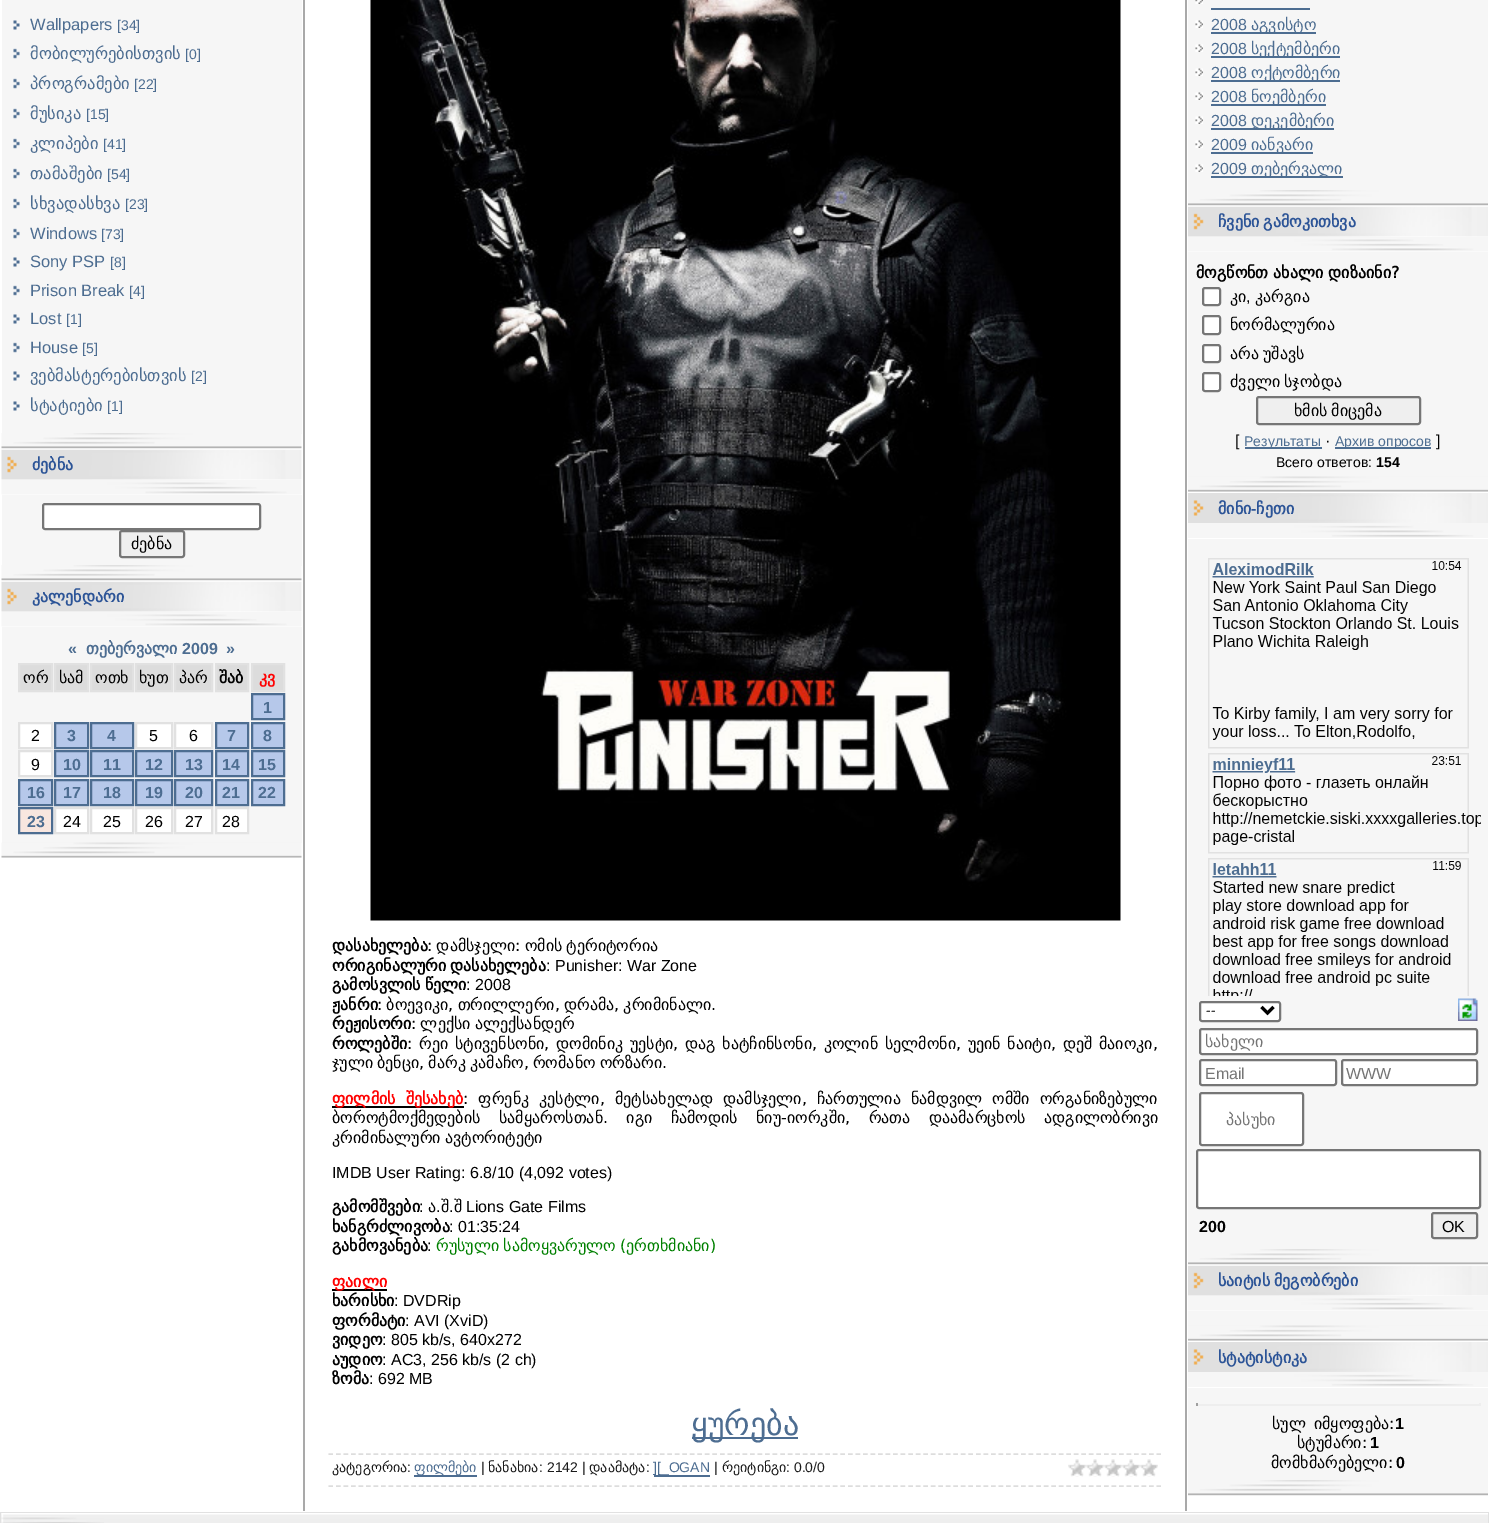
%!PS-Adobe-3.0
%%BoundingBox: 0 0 1489 1523
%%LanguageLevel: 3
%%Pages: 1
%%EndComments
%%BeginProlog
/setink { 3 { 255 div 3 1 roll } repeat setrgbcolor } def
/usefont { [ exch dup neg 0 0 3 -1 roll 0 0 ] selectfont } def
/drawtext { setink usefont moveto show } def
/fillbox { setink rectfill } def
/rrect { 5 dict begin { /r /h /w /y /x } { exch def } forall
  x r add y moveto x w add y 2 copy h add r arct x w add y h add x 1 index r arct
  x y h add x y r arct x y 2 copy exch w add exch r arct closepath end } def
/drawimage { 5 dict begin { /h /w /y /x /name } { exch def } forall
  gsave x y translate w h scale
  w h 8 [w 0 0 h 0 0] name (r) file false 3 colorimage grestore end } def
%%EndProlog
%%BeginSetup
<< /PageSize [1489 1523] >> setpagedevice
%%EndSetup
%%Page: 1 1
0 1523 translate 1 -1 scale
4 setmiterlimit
0 0 1489 1523 255 255 255 fillbox
2 0 300 434 246 246 246 fillbox
(assets/img1.rgb) 13 20 7 10 drawimage
(Wallpapers) 30 30 /LiberationSans-Regular 16.5 77 109 145 drawtext
([34]) 117 30 /LiberationSans-Regular 14 77 109 145 drawtext
(assets/img2.rgb) 13 48 7 11 drawimage
(მობილურებისთვის) 30 59 /DejaVuSans-Regular 16.5 77 109 145 drawtext
([0]) 185 59 /LiberationSans-Regular 14 77 109 145 drawtext
(assets/img2.rgb) 13 78 7 11 drawimage
(პროგრამები) 30 89 /DejaVuSans-Regular 16.5 77 109 145 drawtext
([22]) 134 89 /LiberationSans-Regular 14 77 109 145 drawtext
(assets/img2.rgb) 13 108 7 11 drawimage
(მუსიკა) 30 119 /DejaVuSans-Regular 16.5 77 109 145 drawtext
([15]) 86 119 /LiberationSans-Regular 14 77 109 145 drawtext
(assets/img2.rgb) 13 138 7 11 drawimage
(კლიპები) 30 149 /DejaVuSans-Regular 16.5 77 109 145 drawtext
([41]) 103 149 /LiberationSans-Regular 14 77 109 145 drawtext
(assets/img2.rgb) 13 168 7 11 drawimage
(თამაშები) 30 179 /DejaVuSans-Regular 16.5 77 109 145 drawtext
([54]) 107 179 /LiberationSans-Regular 14 77 109 145 drawtext
(assets/img2.rgb) 13 198 7 11 drawimage
(სხვადასხვა) 30 209 /DejaVuSans-Regular 16.5 77 109 145 drawtext
([23]) 125 209 /LiberationSans-Regular 14 77 109 145 drawtext
(assets/img2.rgb) 13 228 7 11 drawimage
(Windows) 30 239 /LiberationSans-Regular 16.5 77 109 145 drawtext
([73]) 101 239 /LiberationSans-Regular 14 77 109 145 drawtext
(assets/img1.rgb) 13 257 7 10 drawimage
(Sony PSP) 30 267 /LiberationSans-Regular 16.5 77 109 145 drawtext
([8]) 110 267 /LiberationSans-Regular 14 77 109 145 drawtext
(assets/img2.rgb) 13 285 7 11 drawimage
(Prison Break) 30 296 /LiberationSans-Regular 16.5 77 109 145 drawtext
([4]) 129 296 /LiberationSans-Regular 14 77 109 145 drawtext
(assets/img1.rgb) 13 314 7 10 drawimage
(Lost) 30 324 /LiberationSans-Regular 16.5 77 109 145 drawtext
([1]) 66 324 /LiberationSans-Regular 14 77 109 145 drawtext
(assets/img2.rgb) 13 342 7 11 drawimage
(House) 30 353 /LiberationSans-Regular 16.5 77 109 145 drawtext
([5]) 82 353 /LiberationSans-Regular 14 77 109 145 drawtext
(assets/img1.rgb) 13 371 7 10 drawimage
(ვებმასტერებისთვის) 30 381 /DejaVuSans-Regular 16.5 77 109 145 drawtext
([2]) 191 381 /LiberationSans-Regular 14 77 109 145 drawtext
(assets/img1.rgb) 13 401 7 10 drawimage
(სტატიები) 30 411 /DejaVuSans-Regular 16.5 77 109 145 drawtext
([1]) 107 411 /LiberationSans-Regular 14 77 109 145 drawtext
(assets/img4.rgb) 1 449 301 31 drawimage
(assets/img3.rgb) 1 433 301 17 drawimage
(ძებნა) 32 470 /DejaVuSans-Bold 16 44 84 151 drawtext
(assets/img5.rgb) 1 480 301 15 drawimage
2 495 300 71 246 246 246 fillbox
255 255 255 setink
43 504 217 25 2 rrect gsave fill grestore
118 118 118 setink
2 setlinewidth
stroke
239 239 239 setink
120 531 64 26 2 rrect gsave fill grestore
118 118 118 setink
stroke
(ძებნა) 131 549 /DejaVuSans-Regular 16 0 0 0 drawtext
(assets/img4.rgb) 1 581 301 31 drawimage
(assets/img3.rgb) 1 565 301 17 drawimage
(კალენდარი) 32 602 /DejaVuSans-Bold 16 44 84 151 drawtext
(assets/img5.rgb) 1 612 301 15 drawimage
2 627 300 216 246 246 246 fillbox
(«) 68 654 /LiberationSans-Bold 16 77 109 145 drawtext
(თებერვალი) 86 654 /DejaVuSans-Bold 16 77 109 145 drawtext
(2009) 182 654 /LiberationSans-Bold 16 77 109 145 drawtext
(») 226 654 /LiberationSans-Bold 16 77 109 145 drawtext
220 220 220 setink
19 664 moveto 52 664 lineto 52 691 lineto 19 691 lineto closepath gsave fill grestore
225 225 225 setink
stroke
(ორ) 23 683 /DejaVuSans-Regular 16 0 0 0 drawtext
220 220 220 setink
55 664 moveto 88 664 lineto 88 691 lineto 55 691 lineto closepath gsave fill grestore
225 225 225 setink
stroke
(სამ) 59 683 /DejaVuSans-Regular 16 0 0 0 drawtext
220 220 220 setink
91 664 moveto 133 664 lineto 133 691 lineto 91 691 lineto closepath gsave fill grestore
225 225 225 setink
stroke
(ოთხ) 95 683 /DejaVuSans-Regular 16 0 0 0 drawtext
220 220 220 setink
136 664 moveto 172 664 lineto 172 691 lineto 136 691 lineto closepath gsave fill grestore
225 225 225 setink
stroke
(ხუთ) 139 683 /DejaVuSans-Regular 16 0 0 0 drawtext
220 220 220 setink
175 664 moveto 212 664 lineto 212 691 lineto 175 691 lineto closepath gsave fill grestore
225 225 225 setink
stroke
(პარ) 179 683 /DejaVuSans-Regular 16 0 0 0 drawtext
220 220 220 setink
216 664 moveto 248 664 lineto 248 691 lineto 216 691 lineto closepath gsave fill grestore
225 225 225 setink
stroke
(შაბ) 219 683 /DejaVuSans-Bold 16 0 0 0 drawtext
220 220 220 setink
252 664 moveto 284 664 lineto 284 691 lineto 252 691 lineto closepath gsave fill grestore
225 225 225 setink
stroke
(კვ) 259 683 /DejaVuSans-Bold 16 255 0 0 drawtext
182 200 234 setink
252 694 moveto 284 694 lineto 284 719 lineto 252 719 lineto closepath gsave fill grestore
77 109 145 setink
stroke
(1) 263 713 /LiberationSans-Bold 16 77 109 145 drawtext
255 255 255 setink
19 723 moveto 52 723 lineto 52 748 lineto 19 748 lineto closepath gsave fill grestore
225 225 225 setink
stroke
(2) 31 741 /LiberationSans-Regular 16 0 0 0 drawtext
182 200 234 setink
55 723 moveto 88 723 lineto 88 748 lineto 55 748 lineto closepath gsave fill grestore
77 109 145 setink
stroke
(3) 67 741 /LiberationSans-Bold 16 77 109 145 drawtext
182 200 234 setink
91 723 moveto 133 723 lineto 133 748 lineto 91 748 lineto closepath gsave fill grestore
77 109 145 setink
stroke
(4) 107 741 /LiberationSans-Bold 16 77 109 145 drawtext
255 255 255 setink
136 723 moveto 172 723 lineto 172 748 lineto 136 748 lineto closepath gsave fill grestore
225 225 225 setink
stroke
(5) 149 741 /LiberationSans-Regular 16 0 0 0 drawtext
255 255 255 setink
175 723 moveto 212 723 lineto 212 748 lineto 175 748 lineto closepath gsave fill grestore
225 225 225 setink
stroke
(6) 189 741 /LiberationSans-Regular 16 0 0 0 drawtext
182 200 234 setink
216 723 moveto 248 723 lineto 248 748 lineto 216 748 lineto closepath gsave fill grestore
77 109 145 setink
stroke
(7) 227 741 /LiberationSans-Bold 16 77 109 145 drawtext
182 200 234 setink
252 723 moveto 284 723 lineto 284 748 lineto 252 748 lineto closepath gsave fill grestore
77 109 145 setink
stroke
(8) 263 741 /LiberationSans-Bold 16 77 109 145 drawtext
255 255 255 setink
19 751 moveto 52 751 lineto 52 776 lineto 19 776 lineto closepath gsave fill grestore
225 225 225 setink
stroke
(9) 31 770 /LiberationSans-Regular 16 0 0 0 drawtext
182 200 234 setink
55 751 moveto 88 751 lineto 88 776 lineto 55 776 lineto closepath gsave fill grestore
77 109 145 setink
stroke
(10) 63 770 /LiberationSans-Bold 16 77 109 145 drawtext
182 200 234 setink
91 751 moveto 133 751 lineto 133 776 lineto 91 776 lineto closepath gsave fill grestore
77 109 145 setink
stroke
(11) 103 770 /LiberationSans-Bold 16 77 109 145 drawtext
182 200 234 setink
136 751 moveto 172 751 lineto 172 776 lineto 136 776 lineto closepath gsave fill grestore
77 109 145 setink
stroke
(12) 145 770 /LiberationSans-Bold 16 77 109 145 drawtext
182 200 234 setink
175 751 moveto 212 751 lineto 212 776 lineto 175 776 lineto closepath gsave fill grestore
77 109 145 setink
stroke
(13) 185 770 /LiberationSans-Bold 16 77 109 145 drawtext
182 200 234 setink
216 751 moveto 248 751 lineto 248 776 lineto 216 776 lineto closepath gsave fill grestore
77 109 145 setink
stroke
(14) 222 770 /LiberationSans-Bold 16 77 109 145 drawtext
182 200 234 setink
252 751 moveto 284 751 lineto 284 776 lineto 252 776 lineto closepath gsave fill grestore
77 109 145 setink
stroke
(15) 258 770 /LiberationSans-Bold 16 77 109 145 drawtext
182 200 234 setink
19 780 moveto 52 780 lineto 52 805 lineto 19 805 lineto closepath gsave fill grestore
77 109 145 setink
stroke
(16) 27 798 /LiberationSans-Bold 16 77 109 145 drawtext
182 200 234 setink
55 780 moveto 88 780 lineto 88 805 lineto 55 805 lineto closepath gsave fill grestore
77 109 145 setink
stroke
(17) 63 798 /LiberationSans-Bold 16 77 109 145 drawtext
182 200 234 setink
91 780 moveto 133 780 lineto 133 805 lineto 91 805 lineto closepath gsave fill grestore
77 109 145 setink
stroke
(18) 103 798 /LiberationSans-Bold 16 77 109 145 drawtext
182 200 234 setink
136 780 moveto 172 780 lineto 172 805 lineto 136 805 lineto closepath gsave fill grestore
77 109 145 setink
stroke
(19) 145 798 /LiberationSans-Bold 16 77 109 145 drawtext
182 200 234 setink
175 780 moveto 212 780 lineto 212 805 lineto 175 805 lineto closepath gsave fill grestore
77 109 145 setink
stroke
(20) 185 798 /LiberationSans-Bold 16 77 109 145 drawtext
182 200 234 setink
216 780 moveto 248 780 lineto 248 805 lineto 216 805 lineto closepath gsave fill grestore
77 109 145 setink
stroke
(21) 222 798 /LiberationSans-Bold 16 77 109 145 drawtext
182 200 234 setink
252 780 moveto 284 780 lineto 284 805 lineto 252 805 lineto closepath gsave fill grestore
77 109 145 setink
stroke
(22) 258 798 /LiberationSans-Bold 16 77 109 145 drawtext
248 230 223 setink
19 808 moveto 52 808 lineto 52 833 lineto 19 833 lineto closepath gsave fill grestore
77 109 145 setink
stroke
(23) 27 827 /LiberationSans-Bold 16 77 109 145 drawtext
255 255 255 setink
55 808 moveto 88 808 lineto 88 833 lineto 55 833 lineto closepath gsave fill grestore
225 225 225 setink
stroke
(24) 63 827 /LiberationSans-Regular 16 0 0 0 drawtext
255 255 255 setink
91 808 moveto 133 808 lineto 133 833 lineto 91 833 lineto closepath gsave fill grestore
225 225 225 setink
stroke
(25) 103 827 /LiberationSans-Regular 16 0 0 0 drawtext
255 255 255 setink
136 808 moveto 172 808 lineto 172 833 lineto 136 833 lineto closepath gsave fill grestore
225 225 225 setink
stroke
(26) 145 827 /LiberationSans-Regular 16 0 0 0 drawtext
255 255 255 setink
175 808 moveto 212 808 lineto 212 833 lineto 175 833 lineto closepath gsave fill grestore
225 225 225 setink
stroke
(27) 185 827 /LiberationSans-Regular 16 0 0 0 drawtext
255 255 255 setink
216 808 moveto 248 808 lineto 248 833 lineto 216 833 lineto closepath gsave fill grestore
225 225 225 setink
stroke
(28) 222 827 /LiberationSans-Regular 16 0 0 0 drawtext
(assets/img6.rgb) 1 842 301 16 drawimage
1188 0 300 190 246 246 246 fillbox
(assets/img7.rgb) 1195 0 8 4 drawimage
1211 8 99 2 77 109 145 fillbox
(assets/img8.rgb) 1195 20 8 8 drawimage
(2008) 1211 30 /LiberationSans-Regular 16 77 109 145 drawtext
1211 32 105 2 77 109 145 fillbox
(აგვისტო) 1251 30 /DejaVuSans-Regular 16 77 109 145 drawtext
(assets/img8.rgb) 1195 44 8 8 drawimage
(2008) 1211 54 /LiberationSans-Regular 16 77 109 145 drawtext
1211 56 129 2 77 109 145 fillbox
(სექტემბერი) 1251 54 /DejaVuSans-Regular 16 77 109 145 drawtext
(assets/img8.rgb) 1195 68 8 8 drawimage
(2008) 1211 78 /LiberationSans-Regular 16 77 109 145 drawtext
1211 80 129 2 77 109 145 fillbox
(ოქტომბერი) 1251 78 /DejaVuSans-Regular 16 77 109 145 drawtext
(assets/img8.rgb) 1195 92 8 8 drawimage
(2008) 1211 102 /LiberationSans-Regular 16 77 109 145 drawtext
1211 104 115 2 77 109 145 fillbox
(ნოემბერი) 1251 102 /DejaVuSans-Regular 16 77 109 145 drawtext
(assets/img8.rgb) 1195 116 8 8 drawimage
(2008) 1211 126 /LiberationSans-Regular 16 77 109 145 drawtext
1211 128 123 2 77 109 145 fillbox
(დეკემბერი) 1251 126 /DejaVuSans-Regular 16 77 109 145 drawtext
(assets/img8.rgb) 1195 140 8 8 drawimage
(2009) 1211 150 /LiberationSans-Regular 16 77 109 145 drawtext
1211 152 102 2 77 109 145 fillbox
(იანვარი) 1251 150 /DejaVuSans-Regular 16 77 109 145 drawtext
(assets/img8.rgb) 1195 164 8 8 drawimage
(2009) 1211 174 /LiberationSans-Regular 16 77 109 145 drawtext
1211 176 132 2 77 109 145 fillbox
(თებერვალი) 1251 174 /DejaVuSans-Regular 16 77 109 145 drawtext
(assets/img10.rgb) 1188 206 300 31 drawimage
(assets/img9.rgb) 1188 190 300 17 drawimage
/DejaVuSans-Bold 16 usefont
44 84 151 setink
1218 227 moveto -1 0 32 (ჩვენი გამოკითხვა) widthshow
(assets/img11.rgb) 1188 237 300 15 drawimage
1188 252 300 225 246 246 246 fillbox
(მოგწონთ ახალი დიზაინი?) 1196 278 /DejaVuSans-Bold 16 0 0 0 drawtext
255 255 255 setink
1203 288 17 17 2 rrect gsave fill grestore
118 118 118 setink
stroke
(კი) 1230 302 /DejaVuSans-Regular 16 0 0 0 drawtext
(,) 1246 302 /LiberationSans-Regular 16 0 0 0 drawtext
(კარგია) 1255 302 /DejaVuSans-Regular 16 0 0 0 drawtext
255 255 255 setink
1203 316 17 18 2 rrect gsave fill grestore
118 118 118 setink
stroke
(ნორმალურია) 1230 330 /DejaVuSans-Regular 16 0 0 0 drawtext
255 255 255 setink
1203 345 17 17 2 rrect gsave fill grestore
118 118 118 setink
stroke
0 0 0 setink
1230 359 moveto -1 0 32 (არა უშავს) widthshow
255 255 255 setink
1203 373 17 18 2 rrect gsave fill grestore
118 118 118 setink
stroke
0 0 0 setink
1230 387 moveto -1 0 32 (ძველი სჯობდა) widthshow
239 239 239 setink
1257 397 163 27 2 rrect gsave fill grestore
118 118 118 setink
stroke
0 0 0 setink
1294 416 moveto -1 0 32 (ხმის მიცემა) widthshow
([) 1235 446 /LiberationSans-Regular 16 0 0 0 drawtext
1245 447 77 2 77 109 145 fillbox
(Результаты) 1244 446 /LiberationSans-Regular 14 77 109 145 drawtext
(·) 1325 446 /LiberationSans-Regular 16 0 0 0 drawtext
1335 447 96 2 77 109 145 fillbox
(Архив опросов) 1335 446 /LiberationSans-Regular 14 77 109 145 drawtext
(]) 1436 446 /LiberationSans-Regular 16 0 0 0 drawtext
(Всего ответов:) 1276 467 /LiberationSans-Regular 14 0 0 0 drawtext
(154) 1376 467 /LiberationSans-Bold 14 0 0 0 drawtext
(assets/img12.rgb) 1188 476 300 16 drawimage
(assets/img13.rgb) 1188 493 300 30 drawimage
(მინი ჩეთი) 1218 514 /DejaVuSans-Bold 16 44 84 151 drawtext
(-) 1251 514 /LiberationSans-Bold 16 44 84 151 drawtext
(assets/img14.rgb) 1188 523 300 15 drawimage
1188 539 300 710 246 246 246 fillbox
(assets/img15.rgb) 1208 558 273 438 drawimage
255 255 255 setink
1200 1002 80 19 2 rrect gsave fill grestore
118 118 118 setink
stroke
0 0 0 setink
3 setlinewidth
1261.5 1007 moveto 1267.5 1013 lineto 1273.5 1007 lineto stroke
(--) 1206 1015 /LiberationSans-Regular 14 0 0 0 drawtext
(assets/img16.rgb) 1458 998 20 23 drawimage
255 255 255 setink
1200 1029 277 25 2 rrect gsave fill grestore
118 118 118 setink
2 setlinewidth
stroke
(სახელი) 1205 1047 /DejaVuSans-Regular 16 117 117 117 drawtext
255 255 255 setink
1200 1060 136 25 2 rrect gsave fill grestore
118 118 118 setink
stroke
(Email) 1205 1079 /LiberationSans-Regular 16 117 117 117 drawtext
255 255 255 setink
1342 1060 135 25 2 rrect gsave fill grestore
118 118 118 setink
stroke
(WWW) 1346 1079 /LiberationSans-Regular 16 117 117 117 drawtext
255 255 255 setink
1200 1093 103 52 2 rrect gsave fill grestore
118 118 118 setink
stroke
(პასუხი) 1226 1125 /DejaVuSans-Regular 16 117 117 117 drawtext
255 255 255 setink
1197 1150 283 58 2 rrect gsave fill grestore
118 118 118 setink
stroke
(200) 1199 1232 /LiberationSans-Bold 16 0 0 0 drawtext
239 239 239 setink
1432 1213 45 25 2 rrect gsave fill grestore
118 118 118 setink
stroke
(OK) 1442 1232 /LiberationSans-Regular 16 0 0 0 drawtext
(assets/img10.rgb) 1188 1265 300 31 drawimage
(assets/img9.rgb) 1188 1249 300 17 drawimage
/DejaVuSans-Bold 16 usefont
44 84 151 setink
1218 1286 moveto -1 0 32 (საიტის მეგობრები) widthshow
(assets/img11.rgb) 1188 1296 300 15 drawimage
1188 1311 300 15 246 246 246 fillbox
(assets/img12.rgb) 1188 1325 300 16 drawimage
(assets/img13.rgb) 1188 1342 300 30 drawimage
(სტატისტიკა) 1218 1363 /DejaVuSans-Bold 16 44 84 151 drawtext
(assets/img14.rgb) 1188 1372 300 15 drawimage
1188 1388 300 92 246 246 246 fillbox
1479 1403 2 3 238 238 238 fillbox
1196 1404 285 2 238 238 238 fillbox
1196 1403 2 3 159 159 159 fillbox
/DejaVuSans-Regular 16 usefont
0 0 0 setink
1272 1429 moveto 3 0 32 (სულ იმყოფება:) widthshow
(1) 1395 1429 /LiberationSans-Bold 16 0 0 0 drawtext
(სტუმარი:) 1297 1448 /DejaVuSans-Regular 16 0 0 0 drawtext
(1) 1370 1448 /LiberationSans-Bold 16 0 0 0 drawtext
(მომხმარებელი:) 1271 1468 /DejaVuSans-Regular 16 0 0 0 drawtext
(0) 1396 1468 /LiberationSans-Bold 16 0 0 0 drawtext
(assets/img17.rgb) 1188 1480 300 16 drawimage
1185 0 2 1511 169 169 169 fillbox
303 0 2 1511 169 169 169 fillbox
(assets/img18.rgb) 370 0 751 921 drawimage
(დასახელება) 332 951 /DejaVuSans-Bold 16 0 0 0 drawtext
/DejaVuSans-Regular 16 usefont
427 951 moveto -1 0 32 (: დამსჯელი: ომის ტერიტორია) widthshow
/DejaVuSans-Bold 16 usefont
332 971 moveto -1 0 32 (ორიგინალური დასახელება) widthshow
(: Punisher: War Zone) 546 971 /LiberationSans-Regular 16 0 0 0 drawtext
/DejaVuSans-Bold 16 usefont
332 990 moveto -1 0 32 (გამოსვლის წელი) widthshow
(: 2008) 466 990 /LiberationSans-Regular 16 0 0 0 drawtext
(ჟანრი) 332 1010 /DejaVuSans-Bold 16 0 0 0 drawtext
/DejaVuSans-Regular 16 usefont
377 1010 moveto -1 0 32 (: ბოევიკი, თრილლერი, დრამა, კრიმინალი.) widthshow
(რეჟისორი) 332 1029 /DejaVuSans-Bold 16 0 0 0 drawtext
/DejaVuSans-Regular 16 usefont
411 1029 moveto -1 0 32 (: ლექსი ალექსანდერ) widthshow
(როლებში) 332 1049 /DejaVuSans-Bold 16 0 0 0 drawtext
/DejaVuSans-Regular 16 usefont
407 1049 moveto 1.6 0 32 (: რეი სტივენსონი, დომინიკ უესტი, დაგ ხატჩინსონი, კოლინ სელმონი, უეინ ნაიტი, დეშ მაიოკი,) widthshow
332 1068 moveto -1 0 32 (ჯული ბენცი, მარკ კამაჩო, რომანო ორზარი.) widthshow
332 1106 132 2 0 0 0 fillbox
/DejaVuSans-Bold 16 usefont
255 0 0 setink
332 1104 moveto 5 0 32 (ფილმის შესახებ) widthshow
/DejaVuSans-Regular 16 usefont
0 0 0 setink
463 1104 moveto 5 0 32 (: ფრენკ კესტლი, მეტსახელად დამსჯელი, ჩართულია ნამდვილ ომში ორგანიზებული) widthshow
332 1123 moveto 13.25 0 32 (ბოროტმოქმედების სამყაროსთან. იგი ჩამოდის ნიუ-იორკში, რათა დაამარცხოს ადგილობრივი) widthshow
332 1143 moveto -1 0 32 (კრიმინალური ავტორიტეტი) widthshow
(IMDB User Rating: 6.8/10 \(4,092 votes\)) 332 1178 /LiberationSans-Regular 16 0 0 0 drawtext
(გამომშვები) 332 1212 /DejaVuSans-Bold 16 0 0 0 drawtext
(:) 419 1212 /LiberationSans-Regular 16 0 0 0 drawtext
(ა) 428 1212 /DejaVuSans-Regular 16 0 0 0 drawtext
(.) 436 1212 /LiberationSans-Regular 16 0 0 0 drawtext
(შ) 441 1212 /DejaVuSans-Regular 16 0 0 0 drawtext
(.) 449 1212 /LiberationSans-Regular 16 0 0 0 drawtext
(შ) 454 1212 /DejaVuSans-Regular 16 0 0 0 drawtext
(Lions Gate Films) 466 1212 /LiberationSans-Regular 16 0 0 0 drawtext
(ხანგრძლივობა) 332 1232 /DejaVuSans-Bold 16 0 0 0 drawtext
(: 01:35:24) 449 1232 /LiberationSans-Regular 16 0 0 0 drawtext
(გახმოვანება) 332 1251 /DejaVuSans-Bold 16 0 0 0 drawtext
(:) 427 1251 /LiberationSans-Regular 16 0 0 0 drawtext
/DejaVuSans-Regular 16 usefont
0 128 0 setink
436 1251 moveto -1 0 32 (რუსული სამოყვარულო \(ერთხმიანი\)) widthshow
332 1289 55 2 0 0 0 fillbox
(ფაილი) 332 1287 /DejaVuSans-Bold 16 255 0 0 drawtext
(ხარისხი) 332 1306 /DejaVuSans-Bold 16 0 0 0 drawtext
(: DVDRip) 394 1306 /LiberationSans-Regular 16 0 0 0 drawtext
(ფორმატი) 332 1326 /DejaVuSans-Bold 16 0 0 0 drawtext
(: AVI \(XviD\)) 405 1326 /LiberationSans-Regular 16 0 0 0 drawtext
(ვიდეო) 332 1345 /DejaVuSans-Bold 16 0 0 0 drawtext
(: 805 kb/s, 640x272) 382 1345 /LiberationSans-Regular 16 0 0 0 drawtext
(აუდიო) 332 1365 /DejaVuSans-Bold 16 0 0 0 drawtext
(: AC3, 256 kb/s \(2 ch\)) 382 1365 /LiberationSans-Regular 16 0 0 0 drawtext
(ზომა) 332 1384 /DejaVuSans-Bold 16 0 0 0 drawtext
(: 692 MB) 369 1384 /LiberationSans-Regular 16 0 0 0 drawtext
692 1437 106 2 77 109 145 fillbox
(ყურება) 691 1435 /DejaVuSans-Regular 32 77 109 145 drawtext
221 221 221 setink
1.5 setlinewidth
[4.5 3.03] 0 setdash
328.5 1454 moveto 1161 1454 lineto stroke
328.5 1486 moveto 1161 1486 lineto stroke
(კატეგორია) 332 1472 /DejaVuSans-Regular 14 26 26 26 drawtext
(:) 407 1472 /LiberationSans-Regular 14 26 26 26 drawtext
414 1475 63 2 77 109 145 fillbox
(ფილმები) 414 1472 /DejaVuSans-Regular 14 77 109 145 drawtext
(|) 481 1472 /LiberationSans-Regular 14 26 26 26 drawtext
(ნანახია) 488 1472 /DejaVuSans-Regular 14 26 26 26 drawtext
(: 2142 |) 539 1472 /LiberationSans-Regular 14 26 26 26 drawtext
(დაამატა) 589 1472 /DejaVuSans-Regular 14 26 26 26 drawtext
(:) 646 1472 /LiberationSans-Regular 14 26 26 26 drawtext
(][_OGAN) 653 1472 /LiberationSans-Regular 14 77 109 145 drawtext
654 1475 56 2 77 109 145 fillbox
(|) 714 1472 /LiberationSans-Regular 14 26 26 26 drawtext
(რეიტინგი) 722 1472 /DejaVuSans-Regular 14 26 26 26 drawtext
(: 0.0/0) 786 1472 /LiberationSans-Regular 14 26 26 26 drawtext
(assets/img19.rgb) 1068 1459 90 18 drawimage
225 225 225 setink
2 setlinewidth
[] 0 setdash
1 1513 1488 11 rectstroke
(assets/img20.rgb) 1 1513 1487 10 drawimage
(assets/img21.rgb) 1 1513 103 10 drawimage
showpage
%%EOF
